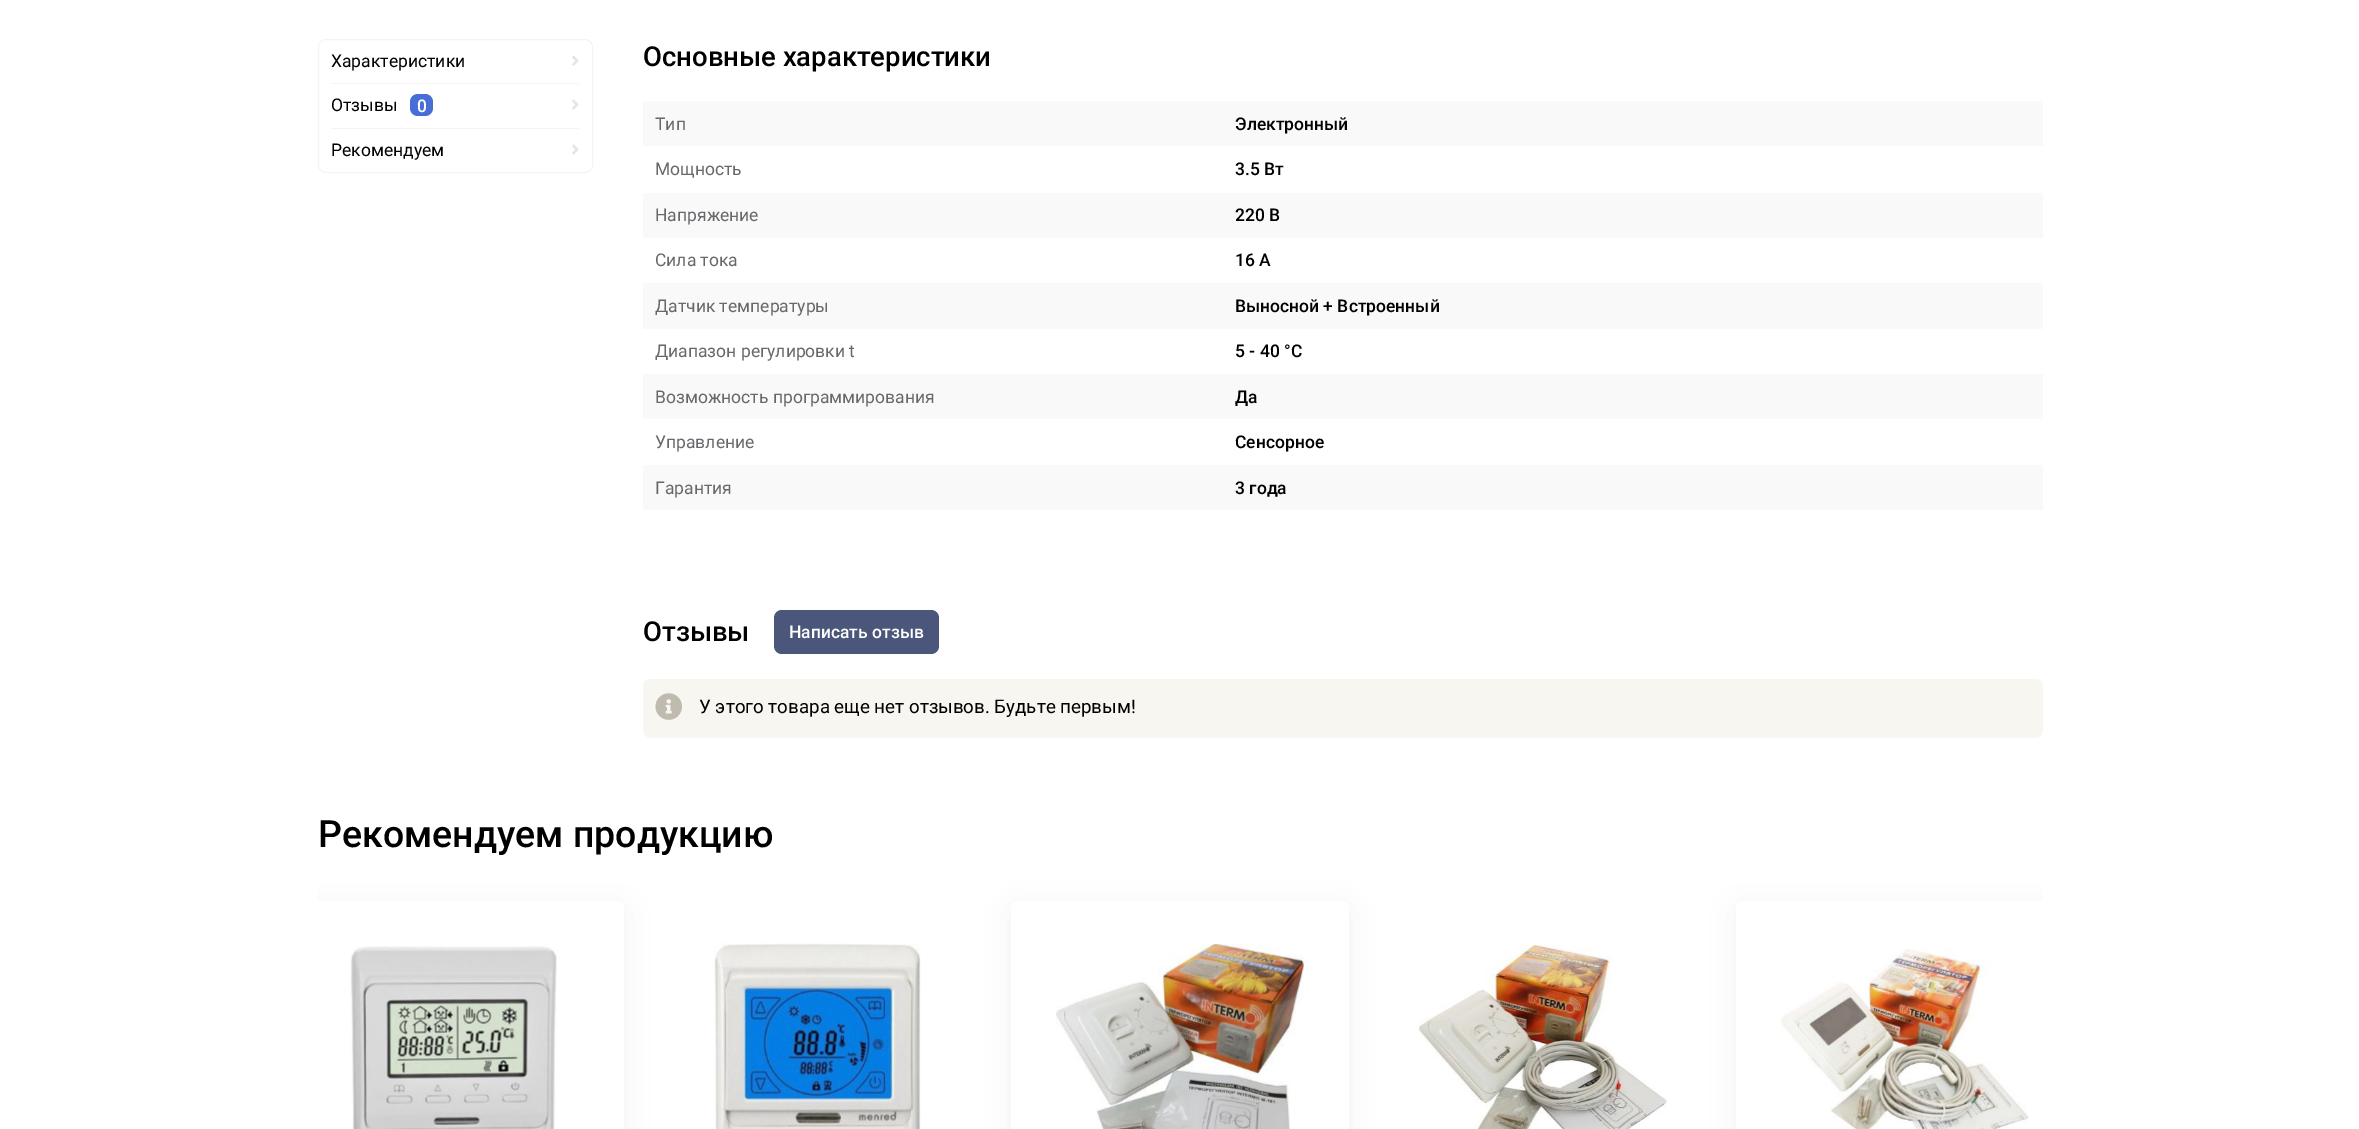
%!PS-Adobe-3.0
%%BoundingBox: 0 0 2359 1129
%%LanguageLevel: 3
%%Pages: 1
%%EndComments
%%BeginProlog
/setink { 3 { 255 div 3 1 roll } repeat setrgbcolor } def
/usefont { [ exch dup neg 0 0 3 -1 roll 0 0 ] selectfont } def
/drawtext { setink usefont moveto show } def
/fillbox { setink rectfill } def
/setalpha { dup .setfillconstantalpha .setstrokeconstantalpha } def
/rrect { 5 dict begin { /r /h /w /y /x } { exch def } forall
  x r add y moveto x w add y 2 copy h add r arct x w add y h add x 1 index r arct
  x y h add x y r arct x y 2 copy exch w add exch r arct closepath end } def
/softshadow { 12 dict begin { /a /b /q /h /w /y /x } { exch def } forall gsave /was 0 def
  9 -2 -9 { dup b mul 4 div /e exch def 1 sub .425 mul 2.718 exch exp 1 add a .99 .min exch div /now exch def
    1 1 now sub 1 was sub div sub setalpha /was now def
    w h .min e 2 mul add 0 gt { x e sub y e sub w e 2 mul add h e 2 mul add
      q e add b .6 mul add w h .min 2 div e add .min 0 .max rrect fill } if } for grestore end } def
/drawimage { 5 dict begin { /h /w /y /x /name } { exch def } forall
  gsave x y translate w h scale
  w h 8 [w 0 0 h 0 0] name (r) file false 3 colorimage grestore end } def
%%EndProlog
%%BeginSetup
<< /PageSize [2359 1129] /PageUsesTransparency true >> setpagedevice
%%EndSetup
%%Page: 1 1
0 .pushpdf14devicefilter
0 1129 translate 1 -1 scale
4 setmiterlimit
0 0 2359 1129 255 255 255 fillbox
244 244 244 setink
318.5 39.5 274 133 7.5 rrect stroke
331 83 248 1 244 244 244 fillbox
(Характеристики) 331 67 /Roboto-Regular 17.5 0 0 0 drawtext
(assets/img1.rgb) 572 55 7 11 drawimage
331 128 248 1 244 244 244 fillbox
(Отзывы) 331 111 /Roboto-Regular 17.5 0 0 0 drawtext
73 109 214 setink
410 94 23 22 8 rrect fill
(0) 417 112 /Roboto-Medium 17.5 255 255 255 drawtext
(assets/img2.rgb) 572 99 7 11 drawimage
(Рекомендуем) 331 156 /Roboto-Regular 17.5 0 0 0 drawtext
(assets/img2.rgb) 572 144 7 11 drawimage
(Основные характеристики) 643 66 /Roboto-Medium 27.5 0 0 0 drawtext
643 101 1400 45 249 249 250 fillbox
(Тип) 655 130 /Roboto-Regular 17.5 102 104 107 drawtext
(Электронный) 1235 130 /Roboto-Medium 17.5 0 0 0 drawtext
(Мощность) 655 175 /Roboto-Regular 17.5 102 104 107 drawtext
(3.5 Вт) 1235 175 /Roboto-Medium 17.5 0 0 0 drawtext
643 193 1400 45 249 249 250 fillbox
(Напряжение) 655 221 /Roboto-Regular 17.5 102 104 107 drawtext
(220 В) 1235 221 /Roboto-Medium 17.5 0 0 0 drawtext
(Сила тока) 655 266 /Roboto-Regular 17.5 102 104 107 drawtext
(16 А) 1235 266 /Roboto-Medium 17.5 0 0 0 drawtext
643 283 1400 46 249 249 250 fillbox
(Датчик температуры) 655 312 /Roboto-Regular 17.5 102 104 107 drawtext
(Выносной + Встроенный) 1235 312 /Roboto-Medium 17.5 0 0 0 drawtext
(Диапазон регулировки t) 655 357 /Roboto-Regular 17.5 102 104 107 drawtext
(5 - 40 °C) 1235 357 /Roboto-Medium 17.5 0 0 0 drawtext
643 374 1400 45 249 249 250 fillbox
(Возможность программирования) 655 403 /Roboto-Regular 17.5 102 104 107 drawtext
(Да) 1235 403 /Roboto-Medium 17.5 0 0 0 drawtext
(Управление) 655 448 /Roboto-Regular 17.5 102 104 107 drawtext
(Сенсорное) 1235 448 /Roboto-Medium 17.5 0 0 0 drawtext
643 465 1400 45 249 249 250 fillbox
(Гарантия) 655 494 /Roboto-Regular 17.5 102 104 107 drawtext
(3 года) 1235 494 /Roboto-Medium 17.5 0 0 0 drawtext
(Отзывы) 643 641 /Roboto-Medium 27.5 0 0 0 drawtext
74 86 122 setink
774 610 165 44 8 rrect fill
(Написать отзыв) 789 638 /Roboto-Medium 17.5 255 255 255 drawtext
247 246 241 setink
643 679 1400 59 8 rrect fill
(assets/img3.rgb) 655 693 27 27 drawimage
(У этого товара еще нет отзывов. Будьте первым!) 699 713 /Roboto-Regular 18.75 0 0 0 drawtext
(Рекомендуем продукцию) 318 847 /Roboto-Medium 37.5 0 0 0 drawtext
gsave
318 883 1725 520 rectclip
286 906 338 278 8 15.5 0.05 softshadow
grestore
255 255 255 setink
318 901 moveto 616 901 lineto 620.5 901 624 904.5 624 909 curveto 624 1129 lineto 624 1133.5 620.5 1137 616 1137 curveto 318 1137 lineto closepath fill
(assets/img4.rgb) 350 946 207 183 drawimage
(assets/img5.rgb) 714 943 207 186 drawimage
0 0 0 setink
1011 906 338 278 8 15.5 0.05 softshadow
255 255 255 setink
1011 901 338 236 8 rrect fill
(assets/img6.rgb) 1056 944 248 185 drawimage
(assets/img7.rgb) 1419 945 248 184 drawimage
gsave
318 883 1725 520 rectclip
0 0 0 setink
1736 906 338 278 8 15.5 0.05 softshadow
grestore
1744 901 moveto 2043 901 lineto 2043 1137 lineto 1744 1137 lineto 1739.5 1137 1736 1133.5 1736 1129 curveto 1736 909 lineto 1736 904.5 1739.5 901 1744 901 curveto closepath fill
(assets/img8.rgb) 1781 949 248 180 drawimage
.poppdf14devicefilter showpage
%%EOF
